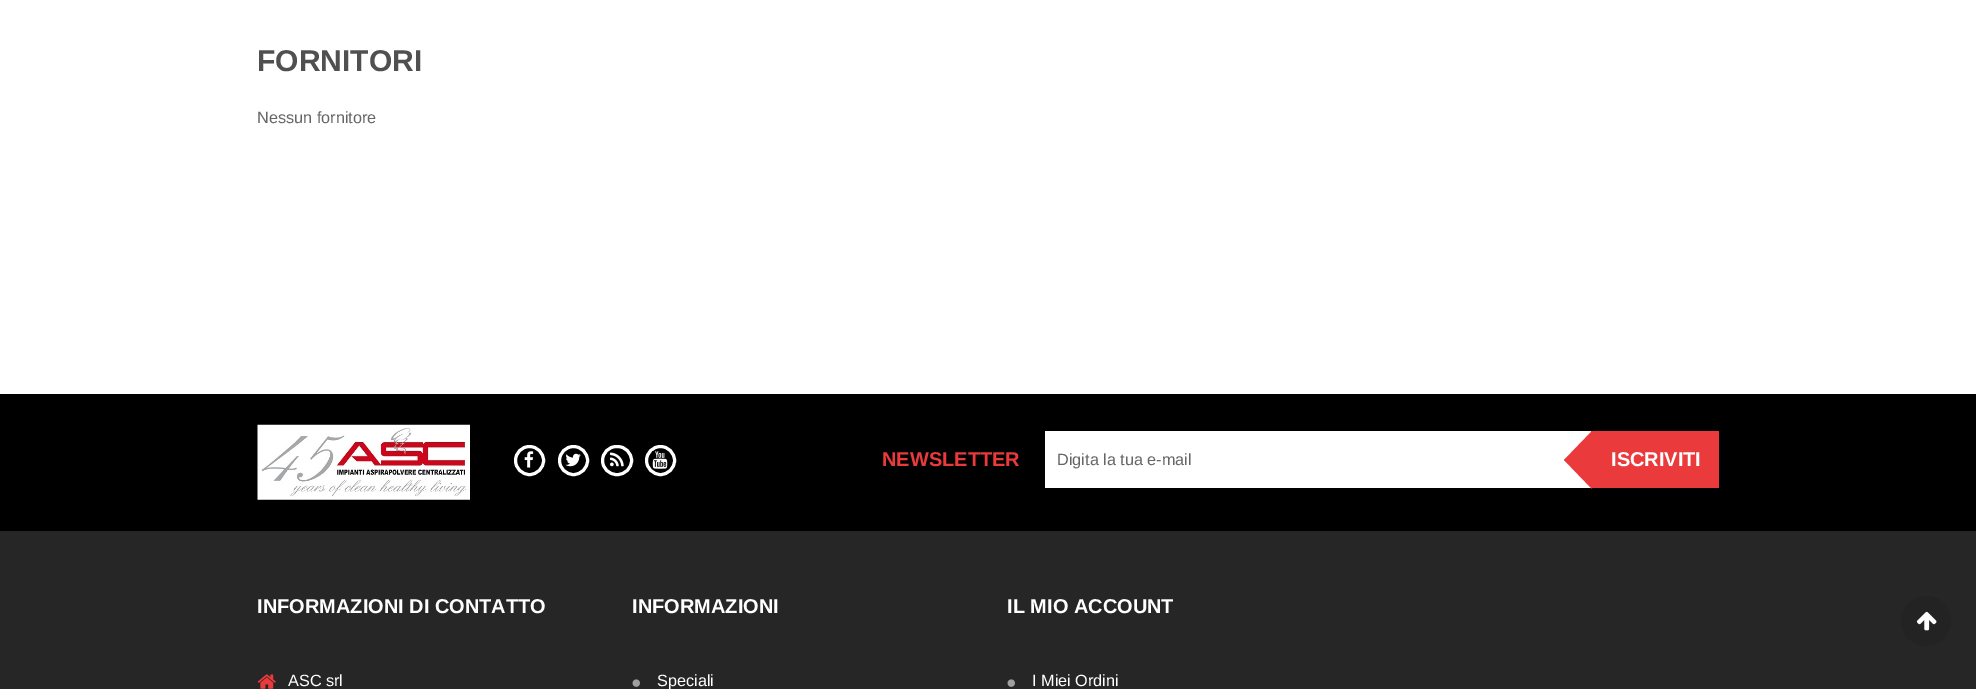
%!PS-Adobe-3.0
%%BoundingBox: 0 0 1976 689
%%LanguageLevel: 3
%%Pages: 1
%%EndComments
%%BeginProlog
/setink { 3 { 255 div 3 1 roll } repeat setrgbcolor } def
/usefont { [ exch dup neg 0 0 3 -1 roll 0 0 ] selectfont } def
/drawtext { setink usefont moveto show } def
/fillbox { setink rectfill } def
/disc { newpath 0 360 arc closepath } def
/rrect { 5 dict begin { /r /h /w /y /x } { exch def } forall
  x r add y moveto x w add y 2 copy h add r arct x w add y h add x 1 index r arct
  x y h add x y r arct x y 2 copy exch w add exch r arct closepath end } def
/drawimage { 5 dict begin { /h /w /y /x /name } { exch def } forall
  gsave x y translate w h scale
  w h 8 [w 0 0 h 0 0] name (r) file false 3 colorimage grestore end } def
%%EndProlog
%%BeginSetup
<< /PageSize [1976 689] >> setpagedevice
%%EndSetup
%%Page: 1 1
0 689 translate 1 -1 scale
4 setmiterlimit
0 0 1976 689 255 255 255 fillbox
(FORNITORI) 257 71 /LiberationSans-Bold 30 80 80 80 drawtext
(Nessun fornitore) 257 123 /LiberationSans-Regular 16.25 102 102 102 drawtext
0 531 1976 158 38 38 38 fillbox
0 394 1976 137 0 0 0 fillbox
(assets/img1.rgb) 257 424 213 76 drawimage
255 255 255 setink
3 setlinewidth
529.5 460.5 14 disc stroke
(assets/img2.rgb) 524 451 10 17 drawimage
573.5 460.5 14 disc stroke
(assets/img3.rgb) 565 453 16 14 drawimage
602.5 446.5 29 28 14 rrect stroke
(assets/img4.rgb) 610 452 14 15 drawimage
660.5 460.5 14 disc stroke
(assets/img5.rgb) 652 451 16 18 drawimage
(NEWSLETTER) 882 466 /LiberationSans-Bold 20 234 58 60 drawtext
1045 431 546 57 255 255 255 fillbox
(Digita la tua e-mail) 1057 465 /LiberationSans-Regular 16.25 102 102 102 drawtext
1591 431 128 57 234 58 60 fillbox
1592 431 moveto 1592 489 lineto 1564 460 lineto closepath fill
(ISCRIVITI) 1611 466 /LiberationSans-Bold 20 255 255 255 drawtext
(INFORMAZIONI DI CONTATTO) 257 613 /LiberationSans-Bold 20 255 255 255 drawtext
(assets/img6.rgb) 257 674 19 15 drawimage
(ASC srl) 288 686 /LiberationSans-Regular 16.25 255 255 255 drawtext
(INFORMAZIONI) 632 613 /LiberationSans-Bold 20 255 255 255 drawtext
(assets/img7.rgb) 632 679 8 8 drawimage
(Speciali) 657 686 /LiberationSans-Regular 16.25 255 255 255 drawtext
(IL MIO ACCOUNT) 1007 613 /LiberationSans-Bold 20 255 255 255 drawtext
(assets/img7.rgb) 1007 679 8 8 drawimage
(I Miei Ordini) 1032 686 /LiberationSans-Regular 16.25 255 255 255 drawtext
35 35 35 setink
1926 621 25 disc fill
(assets/img8.rgb) 1916 611 21 20 drawimage
showpage
%%EOF
